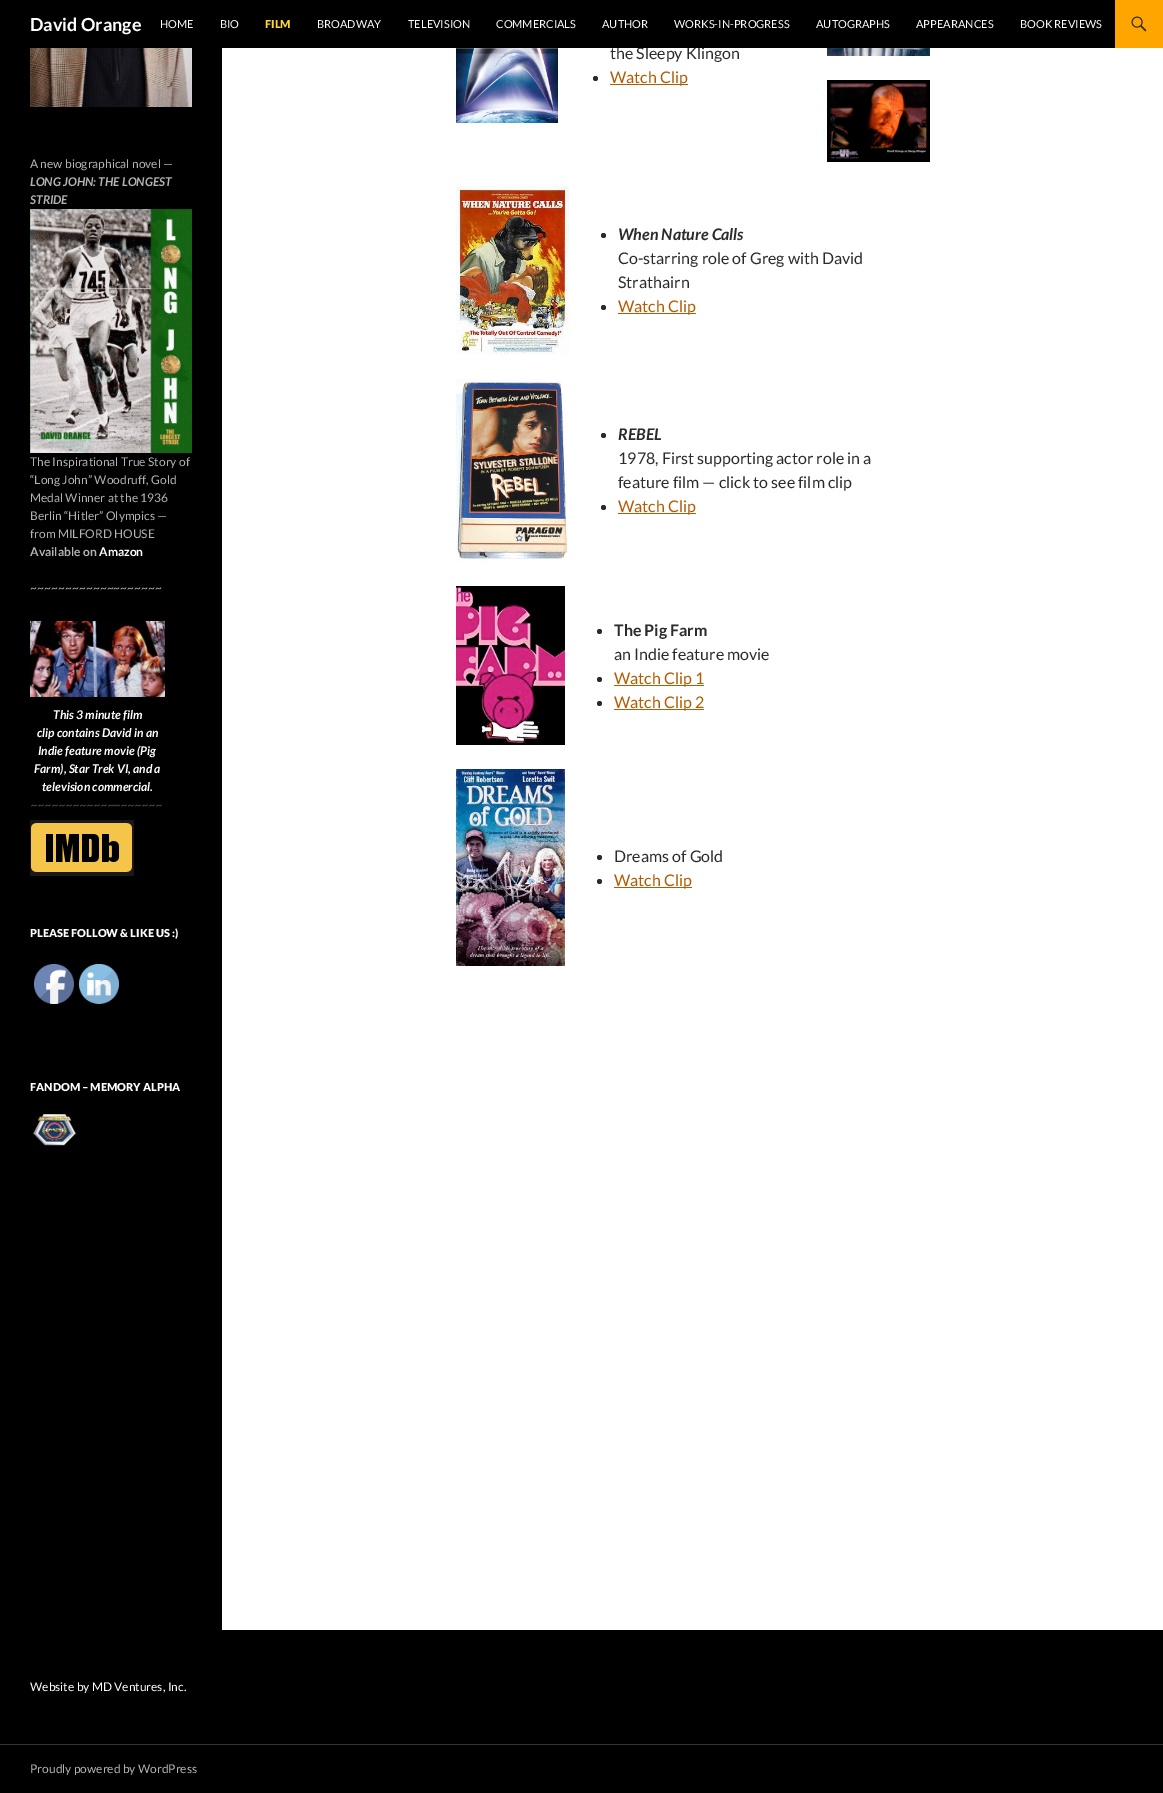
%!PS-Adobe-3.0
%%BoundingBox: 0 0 1163 1793
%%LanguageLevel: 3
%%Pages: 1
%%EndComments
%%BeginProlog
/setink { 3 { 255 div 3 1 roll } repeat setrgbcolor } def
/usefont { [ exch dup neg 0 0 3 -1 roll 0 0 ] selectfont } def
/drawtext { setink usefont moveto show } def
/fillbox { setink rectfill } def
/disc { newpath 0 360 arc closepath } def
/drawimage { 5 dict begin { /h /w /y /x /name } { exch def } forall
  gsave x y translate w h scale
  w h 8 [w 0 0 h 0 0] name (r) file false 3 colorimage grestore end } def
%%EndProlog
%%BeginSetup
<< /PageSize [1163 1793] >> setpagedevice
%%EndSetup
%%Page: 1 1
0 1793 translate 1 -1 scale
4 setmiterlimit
0 0 1163 1793 255 255 255 fillbox
(the Sleepy Klingon) 610 59 /Lato-Regular 16 43 43 43 drawtext
0 0 1115 48 0 0 0 fillbox
(David Orange) 30 31 /Lato-Bold 18 255 255 255 drawtext
(HOME) 160 28 /Lato-Regular 11 255 255 255 drawtext
(BIO) 220 28 /Lato-Regular 11 255 255 255 drawtext
(FILM) 265 28 /Lato-Black 11 255 214 49 drawtext
(BROADWAY) 317 28 /Lato-Regular 11 255 255 255 drawtext
(TELEVISION) 408 28 /Lato-Regular 11 255 255 255 drawtext
(COMMERCIALS) 496 28 /Lato-Regular 11 255 255 255 drawtext
(AUTHOR) 602 28 /Lato-Regular 11 255 255 255 drawtext
(WORKS-IN-PROGRESS) 674 28 /Lato-Regular 11 255 255 255 drawtext
(AUTOGRAPHS) 816 28 /Lato-Regular 11 255 255 255 drawtext
(APPEARANCES) 916 28 /Lato-Regular 11 255 255 255 drawtext
(BOOK REVIEWS) 1020 28 /Lato-Regular 11 255 255 255 drawtext
1115 0 48 48 255 165 0 fillbox
(assets/img1.rgb) 1131 16 16 16 drawimage
0 48 222 1582 0 0 0 fillbox
(assets/img2.rgb) 30 48 162 59 drawimage
(A new biographical novel —) 30 168 /Lato-Regular 12 179 179 179 drawtext
(LONG JOHN: THE LONGEST) 30 186 /Lato-BoldItalic 12 179 179 179 drawtext
(STRIDE) 30 204 /Lato-BoldItalic 12 179 179 179 drawtext
(assets/img3.rgb) 30 209 162 244 drawimage
(The Inspirational True Story of) 30 466 /Lato-Regular 12 179 179 179 drawtext
(“Long John” Woodruff, Gold) 30 484 /Lato-Regular 12 179 179 179 drawtext
(Medal Winner at the 1936) 30 502 /Lato-Regular 12 179 179 179 drawtext
(Berlin “Hitler” Olympics —) 30 520 /Lato-Regular 12 179 179 179 drawtext
(from MILFORD HOUSE) 30 538 /Lato-Regular 12 179 179 179 drawtext
(Available on) 30 556 /Lato-Bold 12 179 179 179 drawtext
(Amazon) 99 556 /Lato-Bold 12 255 255 255 drawtext
(~~~~~~~~~~~~~~~~~~~) 30 592 /Lato-Regular 12 179 179 179 drawtext
(assets/img4.rgb) 30 621 135 76 drawimage
(This 3 minute film) 53 719 /Lato-BoldItalic 12 255 255 255 drawtext
(clip contains David in an) 37 737 /Lato-BoldItalic 12 255 255 255 drawtext
(Indie feature movie \(Pig) 38 755 /Lato-BoldItalic 12 255 255 255 drawtext
(Farm\), Star Trek VI, and a) 34 773 /Lato-BoldItalic 12 255 255 255 drawtext
(television commercial.) 42 791 /Lato-BoldItalic 12 255 255 255 drawtext
(~~~~~~~~~~~~~~~~~~~) 31 809 /Lato-Italic 12 85 85 85 drawtext
(assets/img5.rgb) 30 820 104 56 drawimage
(PLEASE FOLLOW & LIKE US :\)) 30 937 /Lato-Black 11 255 255 255 drawtext
(assets/img6.rgb) 34 964 40 40 drawimage
(assets/img7.rgb) 79 964 40 40 drawimage
(FANDOM – MEMORY ALPHA) 30 1091 /Lato-Black 11 255 255 255 drawtext
(assets/img8.rgb) 33 1114 43 32 drawimage
(assets/img9.rgb) 456 48 102 75 drawimage
43 43 43 setink
595.5 78.5 2.5 disc fill
610 84 78 1 180 90 0 fillbox
(Watch Clip) 610 83 /Lato-Regular 16 180 90 0 drawtext
(assets/img10.rgb) 827 48 103 8 drawimage
(assets/img11.rgb) 827 80 103 82 drawimage
(assets/img12.rgb) 456 186 113 169 drawimage
43 43 43 setink
603.5 235.5 2.5 disc fill
(When Nature Calls) 618 240 /Lato-BoldItalic 16 43 43 43 drawtext
(Co-starring role of Greg with David) 618 264 /Lato-Regular 16 43 43 43 drawtext
(Strathairn) 618 288 /Lato-Regular 16 43 43 43 drawtext
603.5 307.5 2.5 disc fill
618 313 78 1 180 90 0 fillbox
(Watch Clip) 618 312 /Lato-Regular 16 180 90 0 drawtext
(assets/img13.rgb) 456 379 112 183 drawimage
43 43 43 setink
603.5 435.5 2.5 disc fill
(REBEL) 618 440 /Lato-BoldItalic 16 43 43 43 drawtext
(1978, First supporting actor role in a) 618 464 /Lato-Regular 16 43 43 43 drawtext
(feature film — click to see film clip) 618 488 /Lato-Regular 16 43 43 43 drawtext
603.5 507.5 2.5 disc fill
618 513 78 1 180 90 0 fillbox
(Watch Clip) 618 512 /Lato-Regular 16 180 90 0 drawtext
(assets/img14.rgb) 456 586 109 159 drawimage
43 43 43 setink
599.5 631.5 2.5 disc fill
(The Pig Farm) 614 636 /Lato-Bold 16 43 43 43 drawtext
(an Indie feature movie) 614 660 /Lato-Regular 16 43 43 43 drawtext
599.5 679.5 2.5 disc fill
614 685 90 1 180 90 0 fillbox
(Watch Clip 1) 614 684 /Lato-Regular 16 180 90 0 drawtext
43 43 43 setink
599.5 703.5 2.5 disc fill
614 709 90 1 180 90 0 fillbox
(Watch Clip 2) 614 708 /Lato-Regular 16 180 90 0 drawtext
(assets/img15.rgb) 456 769 109 197 drawimage
43 43 43 setink
599.5 857.5 2.5 disc fill
(Dreams of Gold) 614 862 /Lato-Regular 16 43 43 43 drawtext
599.5 881.5 2.5 disc fill
614 887 78 1 180 90 0 fillbox
(Watch Clip) 614 886 /Lato-Regular 16 180 90 0 drawtext
0 1630 1163 163 0 0 0 fillbox
(Website by MD Ventures, Inc.) 30 1691 /Lato-Regular 12 255 255 255 drawtext
0 1744 1163 1 51 51 51 fillbox
(Proudly powered by WordPress) 30 1773 /Lato-Regular 12 179 179 179 drawtext
showpage
%%EOF
